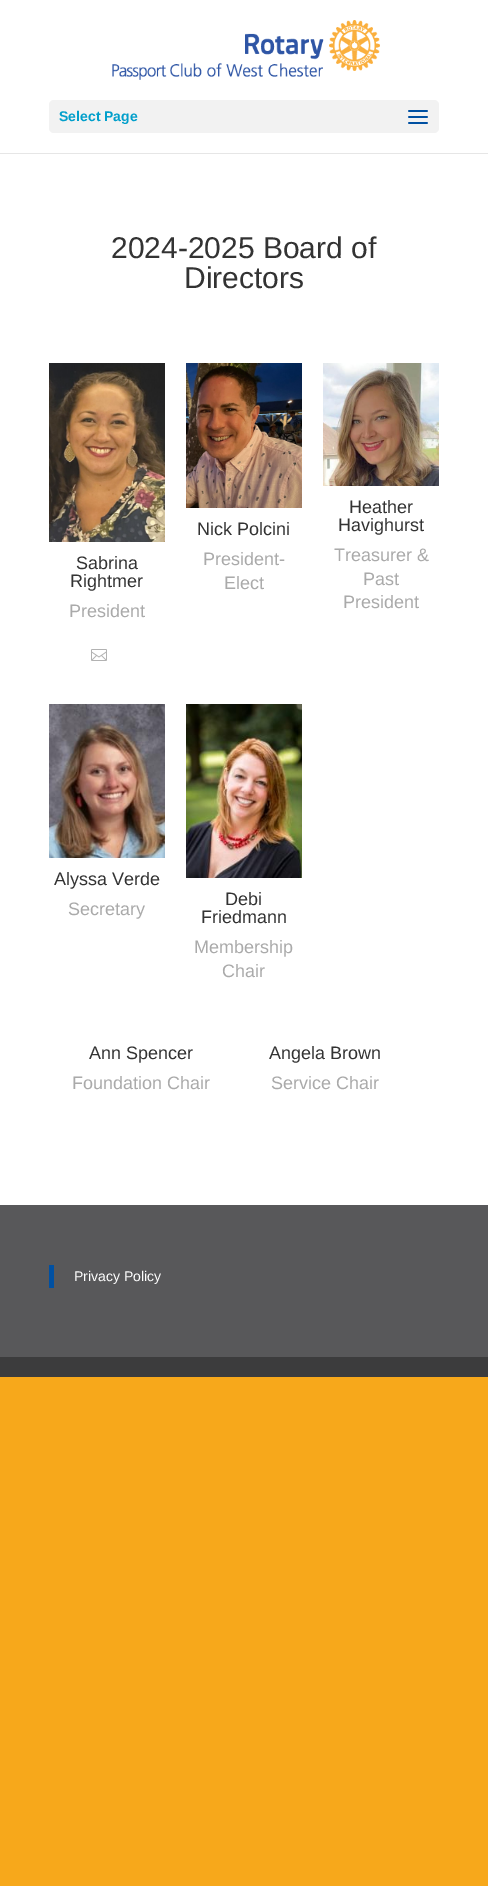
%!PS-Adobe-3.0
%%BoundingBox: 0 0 488 1886
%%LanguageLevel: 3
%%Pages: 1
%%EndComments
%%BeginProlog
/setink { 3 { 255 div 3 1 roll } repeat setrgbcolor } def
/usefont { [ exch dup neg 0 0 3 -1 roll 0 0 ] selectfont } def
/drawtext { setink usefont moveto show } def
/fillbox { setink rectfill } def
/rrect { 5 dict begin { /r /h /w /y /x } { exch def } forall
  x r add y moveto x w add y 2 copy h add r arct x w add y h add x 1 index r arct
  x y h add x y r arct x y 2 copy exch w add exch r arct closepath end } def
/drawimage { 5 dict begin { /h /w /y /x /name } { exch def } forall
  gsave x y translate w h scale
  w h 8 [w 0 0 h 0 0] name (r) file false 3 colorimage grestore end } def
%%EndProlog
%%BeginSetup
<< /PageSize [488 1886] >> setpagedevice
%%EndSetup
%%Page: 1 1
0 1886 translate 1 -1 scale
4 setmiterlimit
0 0 488 1886 247 168 27 fillbox
0 153 488 1 230 230 230 fillbox
0 0 488 153 255 255 255 fillbox
(assets/img1.rgb) 112 20 268 60 drawimage
242 242 242 setink
49 100 390 33 5 rrect fill
(Select Page) 59 121 /LiberationSans-Bold 14 1 159 203 drawtext
(assets/img2.rgb) 408 110 20 14 drawimage
0 154 488 1051 255 255 255 fillbox
(2024-2025 Board of) 111 258 /LiberationSans-Regular 30 51 51 51 drawtext
(Directors) 184 288 /LiberationSans-Regular 30 51 51 51 drawtext
(assets/img3.rgb) 49 363 116 179 drawimage
(Sabrina) 76 569 /LiberationSans-Regular 18 51 51 51 drawtext
(Rightmer) 70 587 /LiberationSans-Regular 18 51 51 51 drawtext
(President) 69 617 /LiberationSans-Regular 18 170 170 170 drawtext
(assets/img4.rgb) 91 649 16 12 drawimage
(assets/img5.rgb) 186 363 116 145 drawimage
(Nick Polcini) 197 535 /LiberationSans-Regular 18 51 51 51 drawtext
(President-) 203 565 /LiberationSans-Regular 18 170 170 170 drawtext
(Elect) 224 589 /LiberationSans-Regular 18 170 170 170 drawtext
(assets/img6.rgb) 323 363 116 123 drawimage
(Heather) 349 513 /LiberationSans-Regular 18 51 51 51 drawtext
(Havighurst) 338 531 /LiberationSans-Regular 18 51 51 51 drawtext
(Treasurer &) 334 561 /LiberationSans-Regular 18 170 170 170 drawtext
(Past) 363 585 /LiberationSans-Regular 18 170 170 170 drawtext
(President) 343 608 /LiberationSans-Regular 18 170 170 170 drawtext
(assets/img7.rgb) 49 704 116 154 drawimage
(Alyssa Verde) 54 885 /LiberationSans-Regular 18 51 51 51 drawtext
(Secretary) 68 915 /LiberationSans-Regular 18 170 170 170 drawtext
(assets/img8.rgb) 186 704 116 174 drawimage
(Debi) 225 905 /LiberationSans-Regular 18 51 51 51 drawtext
(Friedmann) 201 923 /LiberationSans-Regular 18 51 51 51 drawtext
(Membership) 194 953 /LiberationSans-Regular 18 170 170 170 drawtext
(Chair) 222 977 /LiberationSans-Regular 18 170 170 170 drawtext
(Ann Spencer) 89 1059 /LiberationSans-Regular 18 51 51 51 drawtext
(Foundation Chair) 72 1089 /LiberationSans-Regular 18 170 170 170 drawtext
(Angela Brown) 269 1059 /LiberationSans-Regular 18 51 51 51 drawtext
(Service Chair) 271 1089 /LiberationSans-Regular 18 170 170 170 drawtext
0 1205 488 152 88 88 90 fillbox
49 1265 5 23 0 80 162 fillbox
(Privacy Policy) 74 1281 /LiberationSans-Regular 14 255 255 255 drawtext
0 1357 488 20 60 60 61 fillbox
showpage
%%EOF
